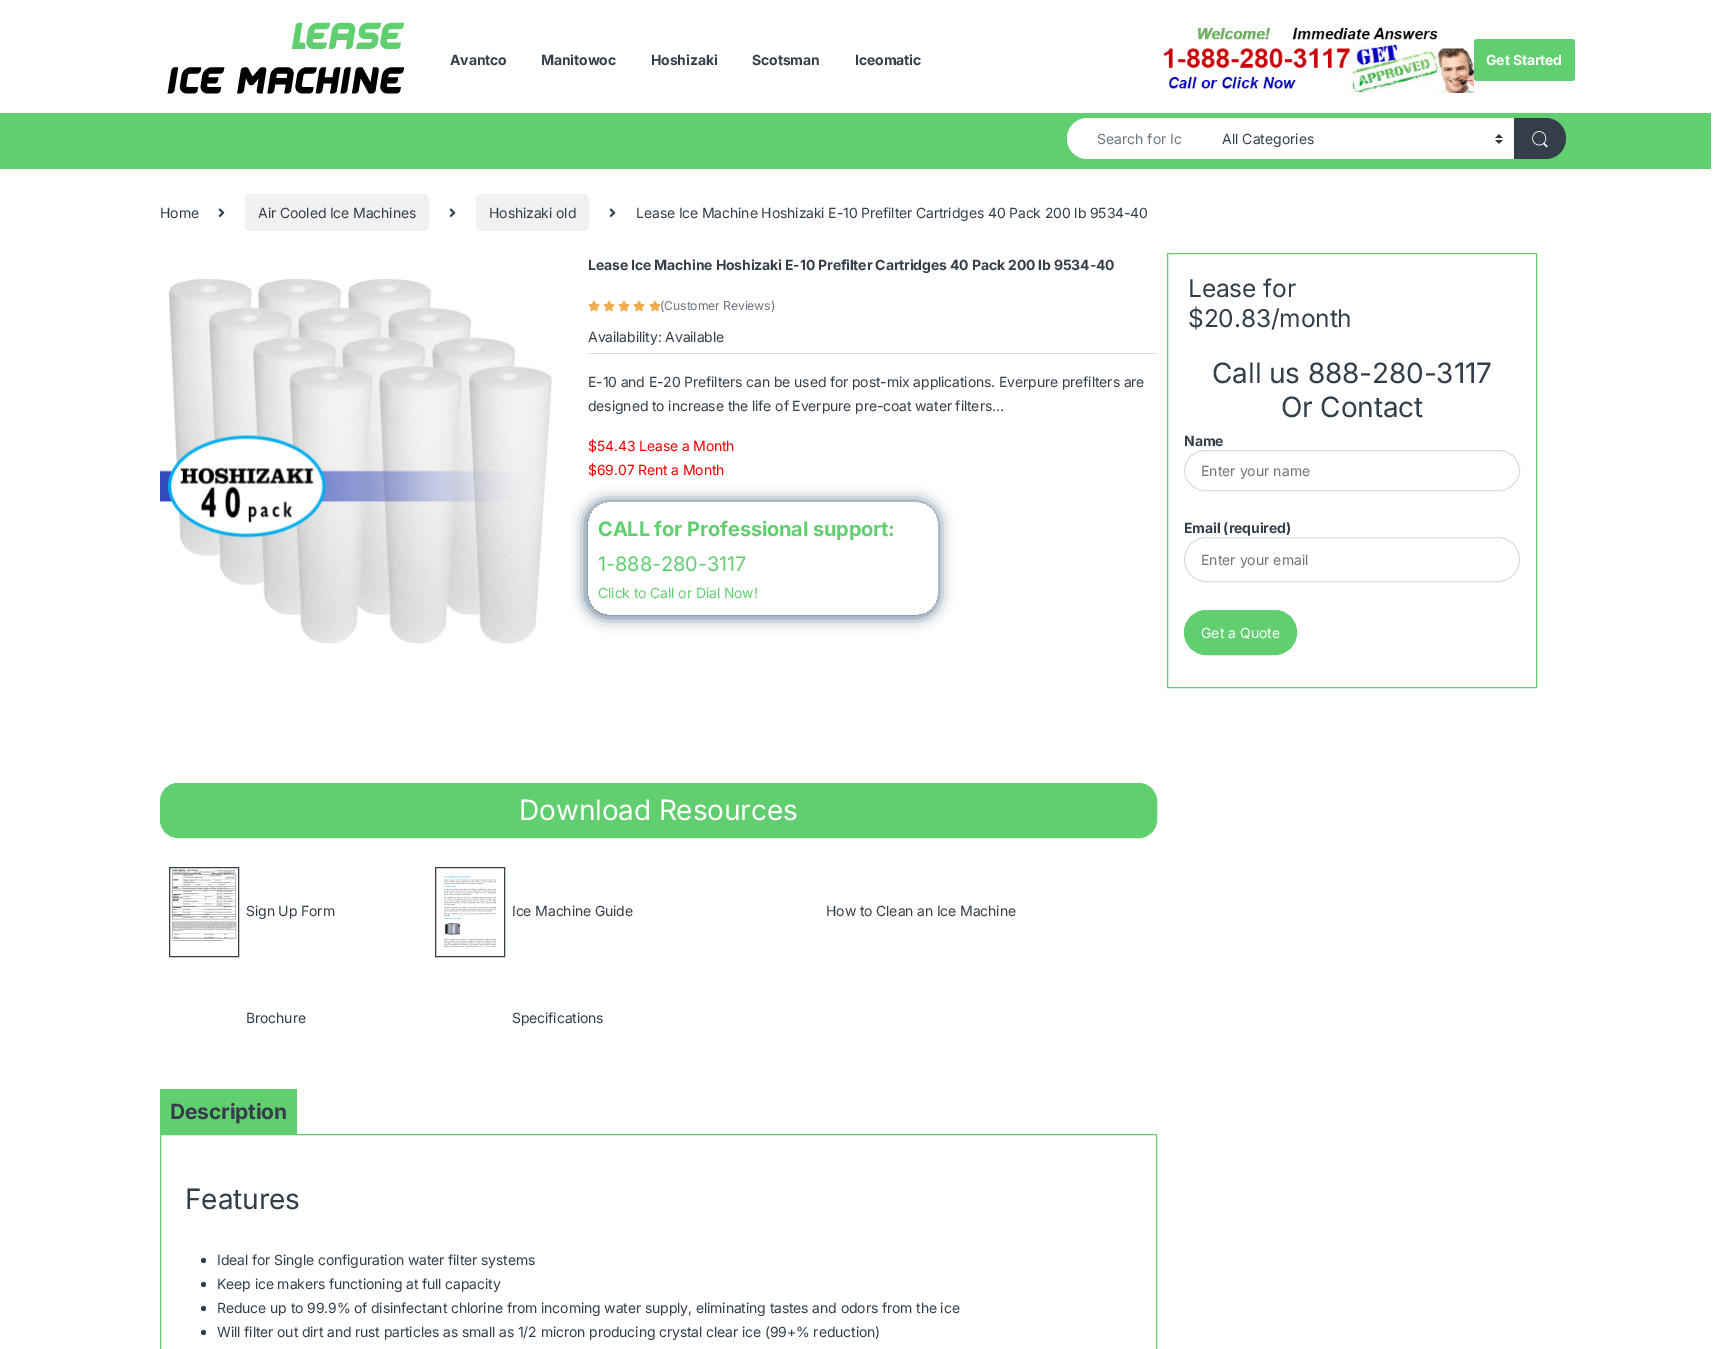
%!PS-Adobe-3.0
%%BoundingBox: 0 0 1719 1349
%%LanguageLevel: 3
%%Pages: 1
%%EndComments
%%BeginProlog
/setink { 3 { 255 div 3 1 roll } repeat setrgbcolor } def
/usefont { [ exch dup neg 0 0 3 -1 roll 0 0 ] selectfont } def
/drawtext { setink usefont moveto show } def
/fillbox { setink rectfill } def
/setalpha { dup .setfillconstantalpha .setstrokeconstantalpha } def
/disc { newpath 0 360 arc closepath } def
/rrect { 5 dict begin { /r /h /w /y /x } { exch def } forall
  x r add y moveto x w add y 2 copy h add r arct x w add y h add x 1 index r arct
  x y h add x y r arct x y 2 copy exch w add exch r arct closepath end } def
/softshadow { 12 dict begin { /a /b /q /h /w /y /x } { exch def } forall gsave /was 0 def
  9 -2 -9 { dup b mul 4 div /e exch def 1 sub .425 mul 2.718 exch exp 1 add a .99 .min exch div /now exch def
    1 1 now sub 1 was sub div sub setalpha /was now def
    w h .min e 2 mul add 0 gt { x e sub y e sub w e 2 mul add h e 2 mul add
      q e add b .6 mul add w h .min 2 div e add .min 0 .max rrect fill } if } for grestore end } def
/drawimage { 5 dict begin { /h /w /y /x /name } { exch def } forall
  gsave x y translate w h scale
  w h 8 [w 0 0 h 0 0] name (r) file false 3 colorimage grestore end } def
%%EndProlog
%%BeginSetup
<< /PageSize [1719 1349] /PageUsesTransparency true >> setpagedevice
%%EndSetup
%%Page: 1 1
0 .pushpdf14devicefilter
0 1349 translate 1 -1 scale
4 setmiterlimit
0 0 1719 1349 255 255 255 fillbox
(assets/img1.rgb) 167 22 237 72 drawimage
/Inter-Bold 14 usefont
51 62 72 setink
450 65 moveto -0.14 0 (Avantco) ashow
541 65 moveto -0.14 0 (Manitowoc) ashow
651 65 moveto -0.14 0 (Hoshizaki) ashow
752 65 moveto -0.14 0 (Scotsman) ashow
855 65 moveto -0.14 0 (Iceomatic) ashow
(assets/img2.rgb) 1163 27 311 66 drawimage
97 206 112 setink
1474 39 101 42 3 rrect fill
255 255 255 setink
1486 65 moveto -0.14 0 (Get Started) ashow
0 113 1711 56 97 206 112 fillbox
255 255 255 setink
1087.5 118 moveto 1211 118 lineto 1211 159 lineto 1087.5 159 lineto 1076 159 1067 150 1067 138.5 curveto 1067 127 1076 118 1087.5 118 curveto closepath fill
(Search for Ic) 1097 144 /Inter-Regular 14 108 117 125 drawtext
1211 118 303 41 255 255 255 fillbox
(assets/img3.rgb) 1495 134 8 10 drawimage
(All Categories) 1222 144 /Inter-Regular 14 51 62 72 drawtext
1514 118 moveto 1545.5 118 lineto 1557 118 1566 127 1566 138.5 curveto 1566 150 1557 159 1545.5 159 curveto 1514 159 lineto closepath fill
(assets/img4.rgb) 1532 131 16 17 drawimage
160 218 moveto -0.14 0 (Home) ashow
(assets/img5.rgb) 218 208 7 10 drawimage
241 241 241 setink
245 194 184 37 5 rrect fill
51 62 72 setink
258 218 moveto -0.14 0 (Air Cooled Ice Machines) ashow
(assets/img5.rgb) 449 208 7 10 drawimage
241 241 241 setink
476 194 113 37 5 rrect fill
51 62 72 setink
489 218 moveto -0.14 0 (Hoshizaki old) ashow
(assets/img5.rgb) 609 208 7 10 drawimage
636 218 moveto -0.14 0 (Lease Ice Machine Hoshizaki E-10 Prefilter Cartridges 40 Pack 200 lb 9534-40) ashow
(assets/img6.rgb) 160 278 392 366 drawimage
588 353 569 1 221 221 221 fillbox
/Inter-Bold 14 usefont
51 62 72 setink
588 270 moveto -0.14 0 (Lease Ice Machine Hoshizaki E-10 Prefilter Cartridges 40 Pack 200 lb 9534-40) ashow
(assets/img7.rgb) 588 300 12 12 drawimage
(assets/img7.rgb) 603 300 12 12 drawimage
(assets/img7.rgb) 618 300 12 12 drawimage
(assets/img7.rgb) 633 300 12 12 drawimage
(assets/img7.rgb) 649 300 12 12 drawimage
/Inter-Regular 12.25 usefont
108 117 125 setink
660 310 moveto -0.14 0 (\(Customer Reviews\)) ashow
/Inter-Regular 14 usefont
51 62 72 setink
588 342 moveto -0.14 0 (Availability: Available) ashow
588 387 moveto -0.14 0 (E-10 and E-20 Prefilters can be used for post-mix applications. Everpure prefilters are) ashow
588 411 moveto -0.14 0 (designed to increase the life of Everpure pre-coat water filters…) ashow
238 0 0 setink
588 451 moveto -0.14 0 ($54.43 Lease a Month) ashow
588 475 moveto -0.14 0 ($69.07 Rent a Month) ashow
gsave
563 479 moveto 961 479 lineto 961 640 lineto 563 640 lineto closepath 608 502 moveto 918 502 lineto 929 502 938 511 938 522 curveto 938 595 lineto 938 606 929 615 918 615 curveto 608 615 lineto 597 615 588 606 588 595 curveto 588 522 lineto 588 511 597 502 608 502 curveto closepath eoclip newpath
90 117 142 setink
585 501 354 117 22 7 1 softshadow
grestore
/Inter-Bold 20 usefont
97 206 112 setink
598 536 moveto -0.14 0 (CALL for Professional support:) ashow
/Inter-Regular 20 usefont
598 571 moveto -0.14 0 (1-888-280-3117) ashow
/Inter-Regular 14 usefont
598 598 moveto -0.14 0 (Click to Call or Dial Now!) ashow
160.5 783.5 996 54 17.5 rrect gsave fill grestore
stroke
/Inter-Regular 28 usefont
255 255 255 setink
519 820 moveto -0.14 0 (Download Resources) ashow
51 62 72 setink
169.5 867.5 69 89 rectstroke
(assets/img8.rgb) 172 869 65 72 drawimage
/Inter-Regular 14 usefont
246 916 moveto -0.14 0 (Sign Up Form) ashow
435.5 867.5 69 89 rectstroke
(assets/img9.rgb) 444 876 53 72 drawimage
512 916 moveto -0.14 0 (Ice Machine Guide) ashow
826 916 moveto -0.14 0 (How to Clean an Ice Machine) ashow
246 1023 moveto -0.14 0 (Brochure) ashow
512 1023 moveto -0.14 0 (Specifications) ashow
160 1089 137 45 97 206 112 fillbox
/Inter-Bold 21 usefont
51 62 72 setink
170 1119 moveto -0.14 0 (Description) ashow
97 206 112 setink
160.5 1134.5 996 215 rectstroke
/Inter-Regular 28 usefont
51 62 72 setink
185 1209 moveto -0.14 0 (Features) ashow
203.5 1260.5 2.5 disc fill
/Inter-Regular 14 usefont
217 1265 moveto -0.14 0 (Ideal for Single configuration water filter systems) ashow
203.5 1284.5 2.5 disc fill
217 1289 moveto -0.14 0 (Keep ice makers functioning at full capacity) ashow
203.5 1308.5 2.5 disc fill
217 1313 moveto -0.14 0 (Reduce up to 99.9% of disinfectant chlorine from incoming water supply, eliminating tastes and odors from the ice) ashow
203.5 1332.5 2.5 disc fill
217 1337 moveto -0.14 0 (Will filter out dirt and rust particles as small as 1/2 micron producing crystal clear ice \(99+% reduction\)) ashow
97 206 112 setink
1167.5 253.5 369 434 rectstroke
/Inter-Regular 24.5 usefont
51 62 72 setink
1188 297 moveto -0.14 0 (Lease for) ashow
1188 327 moveto -0.14 0 ($20.83/month) ashow
/Inter-Regular 28 usefont
1212 383 moveto -0.14 0 (Call us 888-280-3117) ashow
1281 417 moveto -0.14 0 (Or Contact) ashow
/Inter-Bold 14 usefont
1184 446 moveto -0.14 0 (Name) ashow
221 221 221 setink
1184.5 450.5 335 40 20 rrect stroke
(Enter your name) 1201 476 /Inter-Regular 14 108 117 125 drawtext
/Inter-Bold 14 usefont
51 62 72 setink
1184 533 moveto -0.14 0 (Email \(required\)) ashow
221 221 221 setink
1184.5 537.5 335 44 21.5 rrect stroke
(Enter your email) 1201 565 /Inter-Regular 14 108 117 125 drawtext
97 206 112 setink
1184.5 610.5 112 44 21.5 rrect gsave fill grestore
stroke
(Get a Quote) 1201 638 /Inter-Regular 14 255 255 255 drawtext
.poppdf14devicefilter showpage
%%EOF
